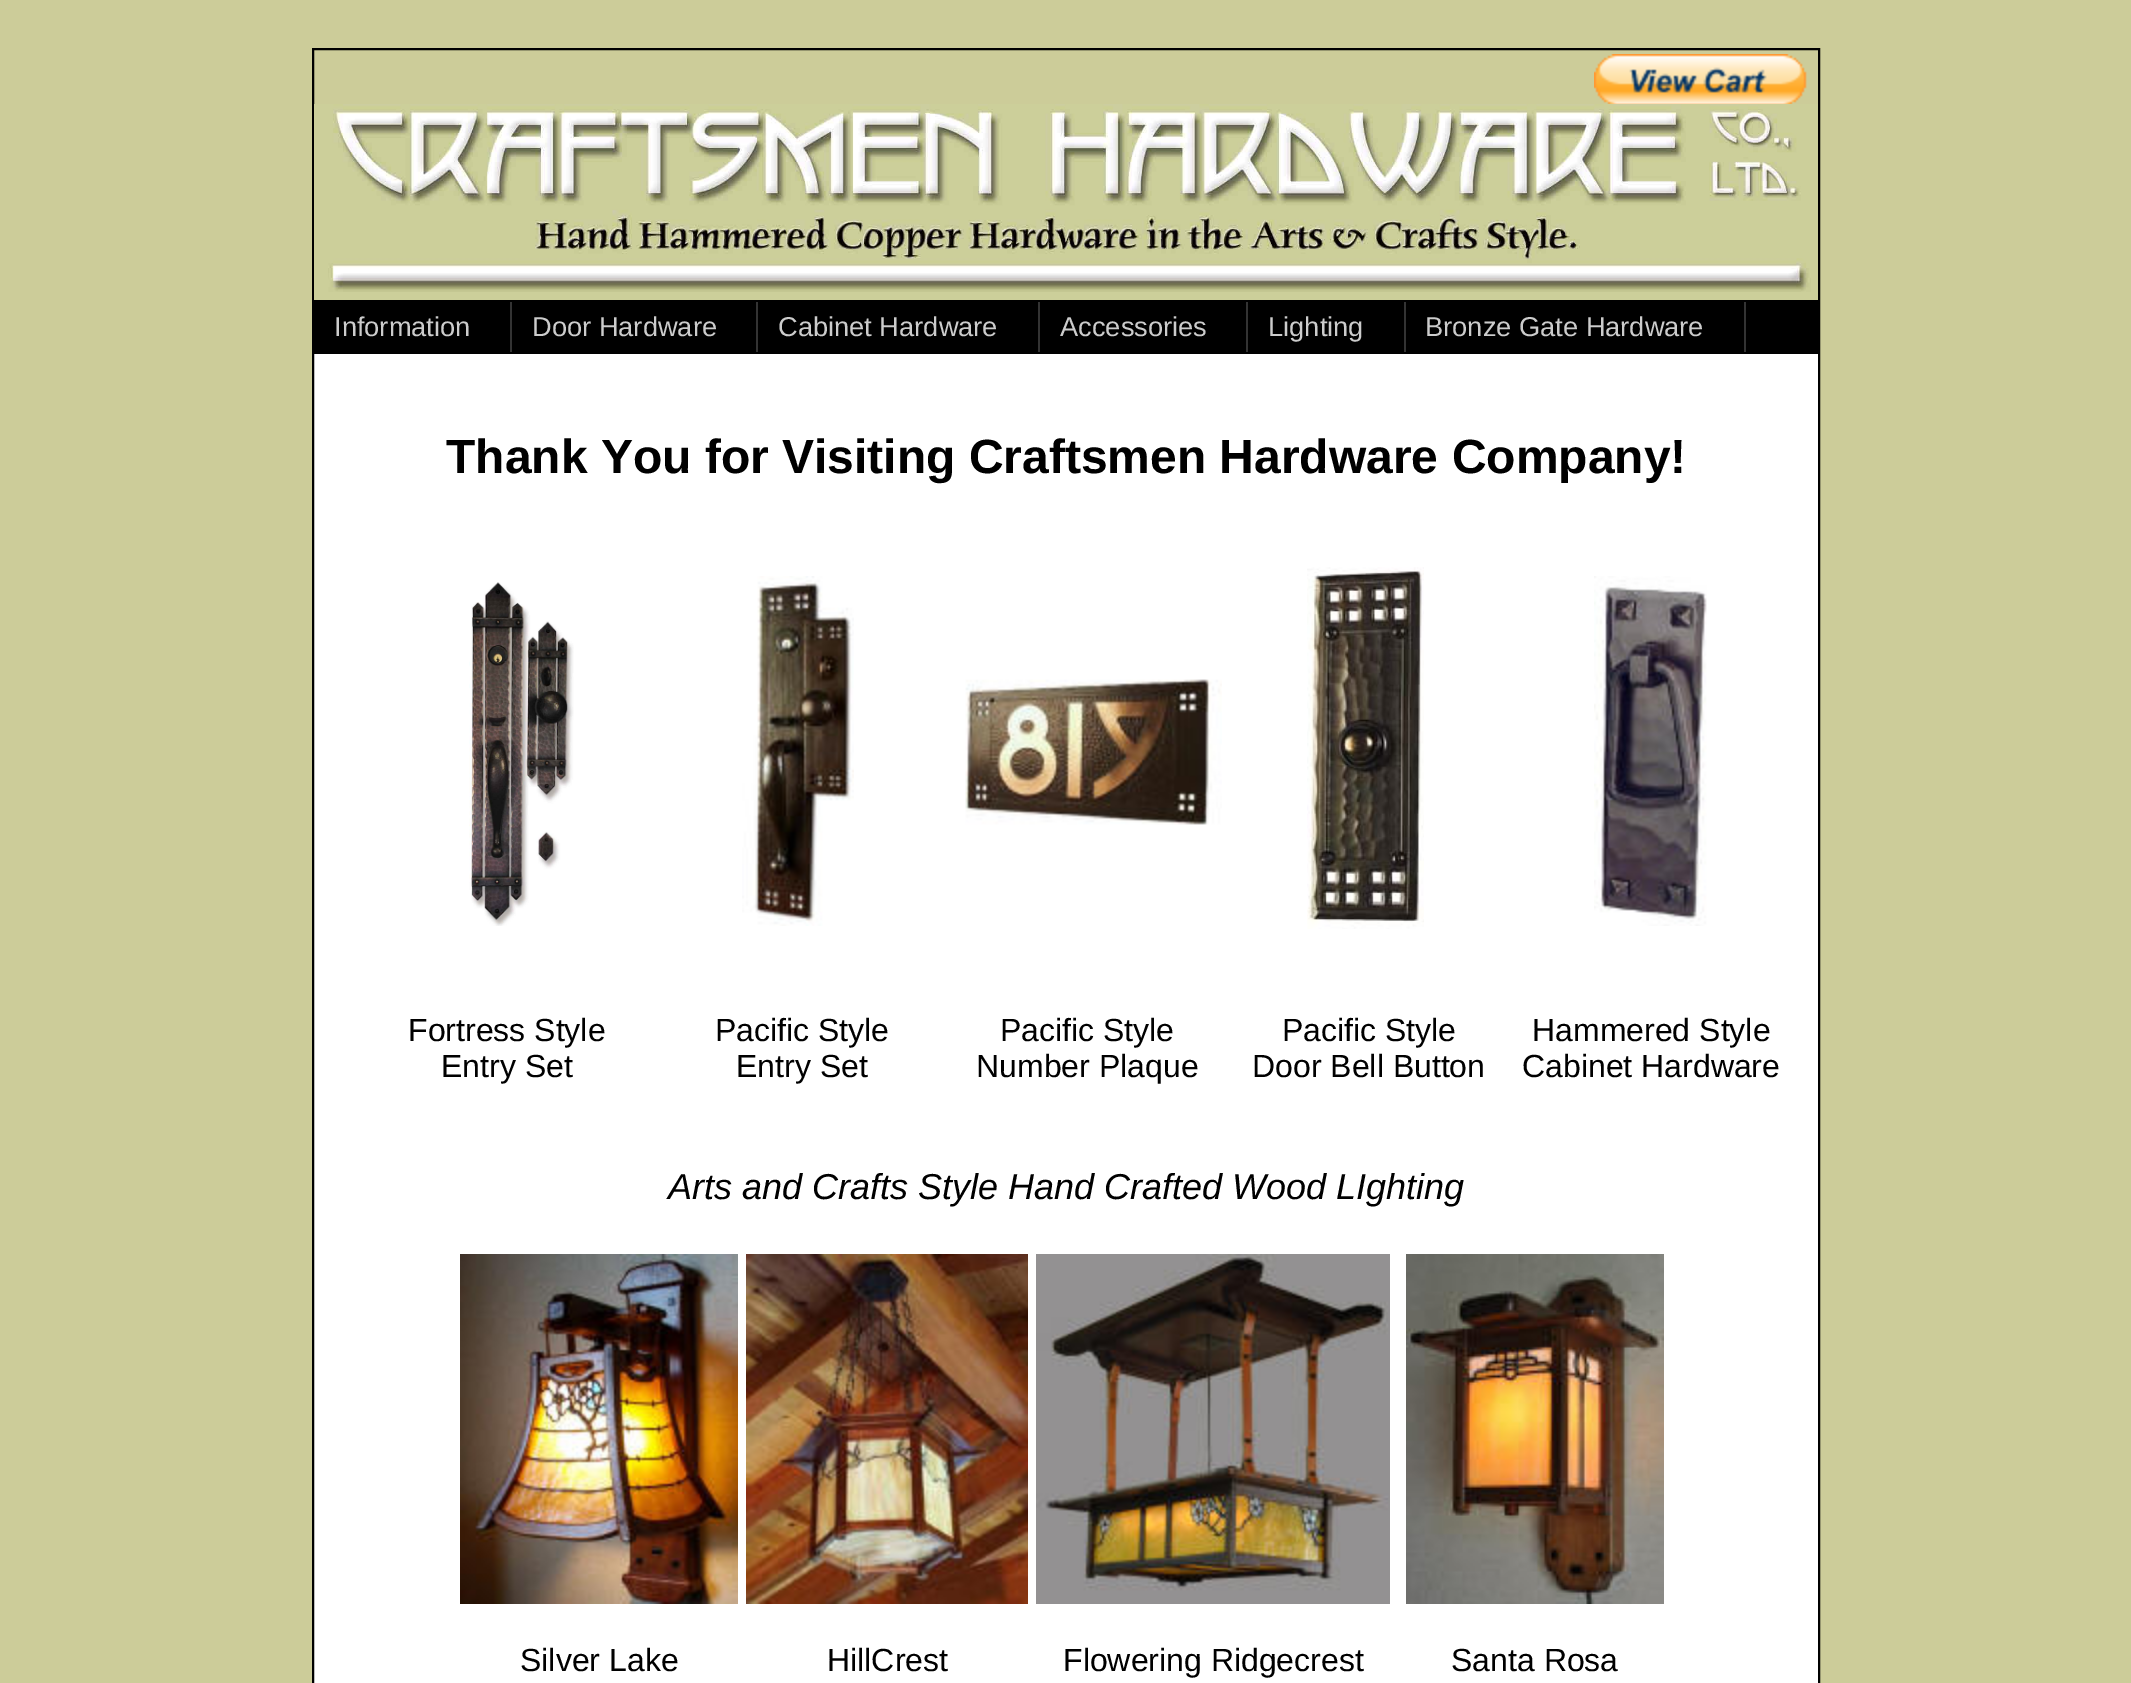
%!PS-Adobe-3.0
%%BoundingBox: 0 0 2131 1683
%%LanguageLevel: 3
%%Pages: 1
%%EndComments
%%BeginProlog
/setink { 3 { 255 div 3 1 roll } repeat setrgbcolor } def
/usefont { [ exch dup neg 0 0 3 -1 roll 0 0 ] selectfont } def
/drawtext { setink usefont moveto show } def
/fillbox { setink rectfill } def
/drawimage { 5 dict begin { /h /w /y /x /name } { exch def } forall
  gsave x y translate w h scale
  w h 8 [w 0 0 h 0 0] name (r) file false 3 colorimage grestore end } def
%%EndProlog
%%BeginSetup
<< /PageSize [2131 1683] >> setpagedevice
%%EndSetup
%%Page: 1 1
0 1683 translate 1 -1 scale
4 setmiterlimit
0 0 2131 1683 204 204 153 fillbox
314 354 1504 1329 255 255 255 fillbox
0 0 0 setink
2 setlinewidth
313 49 1506 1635 rectstroke
(assets/img1.rgb) 1594 54 213 50 drawimage
(assets/img2.rgb) 314 104 1504 196 drawimage
314 300 1504 54 0 0 0 fillbox
510 302 2 50 51 51 51 fillbox
(Information) 334 336 /LiberationSans-Regular 27.25 204 204 204 drawtext
756 302 2 50 51 51 51 fillbox
(Door Hardware) 532 336 /LiberationSans-Regular 27.25 204 204 204 drawtext
1038 302 2 50 51 51 51 fillbox
(Cabinet Hardware) 778 336 /LiberationSans-Regular 27.25 204 204 204 drawtext
1246 302 2 50 51 51 51 fillbox
(Accessories) 1060 336 /LiberationSans-Regular 27.25 204 204 204 drawtext
1404 302 2 50 51 51 51 fillbox
(Lighting) 1268 336 /LiberationSans-Regular 27.25 204 204 204 drawtext
1744 302 2 50 51 51 51 fillbox
(Bronze Gate Hardware) 1425 336 /LiberationSans-Regular 27.25 204 204 204 drawtext
(Thank You for Visiting Craftsmen Hardware Company!) 446 473 /LiberationSans-Bold 48 0 0 0 drawtext
(assets/img3.rgb) 469 582 105 344 drawimage
(assets/img4.rgb) 742 576 112 350 drawimage
(assets/img5.rgb) 965 679 257 146 drawimage
(assets/img6.rgb) 1307 567 117 362 drawimage
(assets/img7.rgb) 1594 576 113 350 drawimage
(Fortress Style) 408 1041 /LiberationSans-Regular 32 0 0 0 drawtext
(Entry Set) 441 1077 /LiberationSans-Regular 32 0 0 0 drawtext
(Pacific Style) 715 1041 /LiberationSans-Regular 32 0 0 0 drawtext
(Entry Set) 736 1077 /LiberationSans-Regular 32 0 0 0 drawtext
(Pacific Style) 1000 1041 /LiberationSans-Regular 32 0 0 0 drawtext
(Number Plaque) 976 1077 /LiberationSans-Regular 32 0 0 0 drawtext
(Pacific Style) 1282 1041 /LiberationSans-Regular 32 0 0 0 drawtext
(Door Bell Button) 1252 1077 /LiberationSans-Regular 32 0 0 0 drawtext
(Hammered Style) 1532 1041 /LiberationSans-Regular 32 0 0 0 drawtext
(Cabinet Hardware) 1522 1077 /LiberationSans-Regular 32 0 0 0 drawtext
(Arts and Crafts Style Hand Crafted Wood LIghting) 668 1199 /LiberationSans-Italic 36 0 0 0 drawtext
(assets/img8.rgb) 460 1254 278 350 drawimage
(assets/img9.rgb) 746 1254 282 350 drawimage
(assets/img10.rgb) 1036 1254 354 350 drawimage
(assets/img11.rgb) 1406 1254 258 350 drawimage
(Silver Lake) 520 1671 /LiberationSans-Regular 32 0 0 0 drawtext
(HillCrest) 827 1671 /LiberationSans-Regular 32 0 0 0 drawtext
(Flowering Ridgecrest) 1063 1671 /LiberationSans-Regular 32 0 0 0 drawtext
(Santa Rosa) 1451 1671 /LiberationSans-Regular 32 0 0 0 drawtext
showpage
%%EOF
